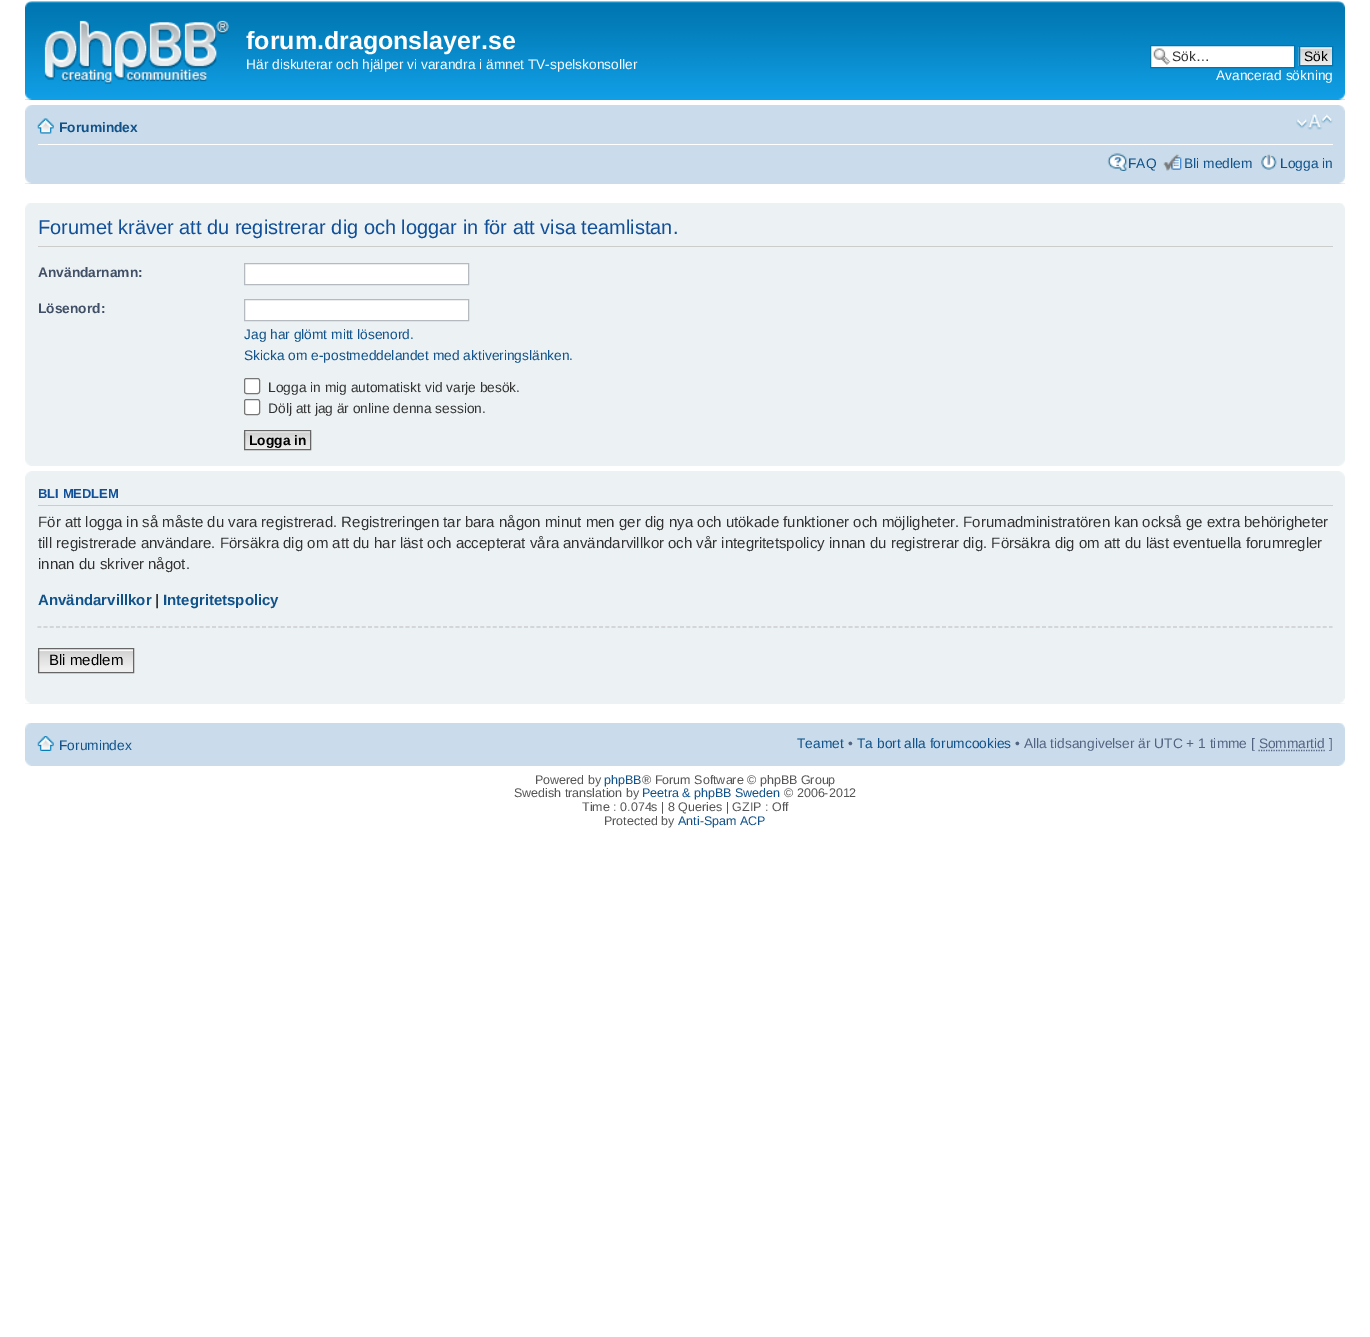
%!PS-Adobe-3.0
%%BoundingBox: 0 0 1370 1337
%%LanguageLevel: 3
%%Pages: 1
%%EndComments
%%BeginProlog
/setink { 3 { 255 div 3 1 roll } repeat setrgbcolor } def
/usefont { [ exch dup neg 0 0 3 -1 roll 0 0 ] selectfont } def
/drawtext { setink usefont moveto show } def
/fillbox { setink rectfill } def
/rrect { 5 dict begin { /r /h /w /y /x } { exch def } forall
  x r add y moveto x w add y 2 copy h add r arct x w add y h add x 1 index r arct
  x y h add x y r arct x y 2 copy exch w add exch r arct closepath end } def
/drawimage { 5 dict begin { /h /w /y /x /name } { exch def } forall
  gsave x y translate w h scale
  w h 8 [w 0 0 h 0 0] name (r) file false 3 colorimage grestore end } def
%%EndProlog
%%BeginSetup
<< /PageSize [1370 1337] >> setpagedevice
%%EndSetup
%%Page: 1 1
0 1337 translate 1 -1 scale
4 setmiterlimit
0 0 1370 1337 255 255 255 fillbox
(assets/img1.rgb) 25 1 1320 99 drawimage
(assets/img2.rgb) 25 1 7 7 drawimage
(assets/img3.rgb) 1338 1 7 7 drawimage
(assets/img4.rgb) 44 20 185 64 drawimage
(forum.dragonslayer.se) 246 49 /LiberationSans-Bold 25 255 255 255 drawtext
(Här diskuterar och hjälper vi varandra i ämnet TV-spelskonsoller) 246 69 /LiberationSans-Regular 13.75 255 255 255 drawtext
1151 46 143 21 255 255 255 fillbox
(assets/img5.rgb) 1153 48 18 17 drawimage
0 117 176 setink
1150.5 45.5 144 22 rectstroke
(Sök…) 1172 61 /LiberationSans-Regular 13.75 51 51 51 drawtext
(assets/img6.rgb) 1298 47 34 19 drawimage
0 117 176 setink
1299.5 46.5 33 19 rectstroke
(Sök) 1304 61 /LiberationSans-Regular 13.75 0 0 0 drawtext
(Avancerad sökning) 1216 80 /LiberationSans-Regular 13.75 255 255 255 drawtext
(assets/img7.rgb) 25 93 7 7 drawimage
(assets/img8.rgb) 1338 93 7 7 drawimage
25 105 1320 79 202 220 235 fillbox
(assets/img9.rgb) 25 105 7 6 drawimage
(assets/img10.rgb) 1339 105 6 6 drawimage
38 144 1295 1 255 255 255 fillbox
(assets/img11.rgb) 37 118 17 16 drawimage
(Forumindex) 59 132 /LiberationSans-Bold 13.75 16 82 137 drawtext
(assets/img12.rgb) 1296 114 37 16 drawimage
(assets/img13.rgb) 1107 153 21 18 drawimage
(FAQ) 1128 168 /LiberationSans-Regular 13.75 16 82 137 drawtext
(assets/img14.rgb) 1163 154 19 17 drawimage
(Bli medlem) 1184 168 /LiberationSans-Regular 13.75 16 82 137 drawtext
(assets/img15.rgb) 1261 154 16 16 drawimage
(Logga in) 1280 168 /LiberationSans-Regular 13.75 16 82 137 drawtext
(assets/img16.rgb) 25 177 6 7 drawimage
(assets/img17.rgb) 1339 177 6 7 drawimage
25 203 1320 263 236 241 243 fillbox
(assets/img18.rgb) 25 203 5 5 drawimage
(assets/img19.rgb) 1340 203 5 5 drawimage
38 246 1295 1 204 204 204 fillbox
(Forumet kräver att du registrerar dig och loggar in för att visa teamlistan.) 38 234 /LiberationSans-Regular 20 17 80 152 drawtext
(Användarnamn:) 38 277 /LiberationSans-Bold 13.75 66 80 103 drawtext
255 255 255 setink
244.5 263.5 moveto 468.5 263.5 lineto 468.5 284.5 lineto 244.5 284.5 lineto closepath gsave fill grestore
180 186 192 setink
stroke
(Lösenord:) 38 313 /LiberationSans-Bold 13.75 66 80 103 drawtext
255 255 255 setink
244.5 299.5 moveto 468.5 299.5 lineto 468.5 320.5 lineto 244.5 320.5 lineto closepath gsave fill grestore
180 186 192 setink
stroke
(Jag har glömt mitt lösenord.) 244 339 /LiberationSans-Regular 13.75 16 82 137 drawtext
(Skicka om e-postmeddelandet med aktiveringslänken.) 244 360 /LiberationSans-Regular 13.75 16 82 137 drawtext
255 255 255 setink
244.5 378.5 15 15 2 rrect gsave fill grestore
118 118 118 setink
stroke
(Logga in mig automatiskt vid varje besök.) 268 392 /LiberationSans-Regular 13.75 51 51 51 drawtext
255 255 255 setink
244.5 399.5 15 15 2 rrect gsave fill grestore
118 118 118 setink
stroke
(Dölj att jag är online denna session.) 268 413 /LiberationSans-Regular 13.75 51 51 51 drawtext
(assets/img20.rgb) 243 431 69 19 drawimage
102 102 102 setink
244.5 430.5 66 19 rectstroke
(Logga in) 249 445 /LiberationSans-Bold 13.75 0 0 0 drawtext
(assets/img21.rgb) 25 460 6 6 drawimage
(assets/img22.rgb) 1339 460 6 6 drawimage
25 471 1320 233 236 241 243 fillbox
(assets/img23.rgb) 25 471 6 6 drawimage
(assets/img24.rgb) 1339 471 6 6 drawimage
38 505 1295 1 204 204 204 fillbox
(BLI MEDLEM) 38 498 /LiberationSans-Bold 13 17 80 152 drawtext
(För att logga in så måste du vara registrerad. Registreringen tar bara någon minut men ger dig nya och utökade funktioner och möjligheter. Forumadministratören kan också ge extra behörigheter) 38 527 /LiberationSans-Regular 15 51 51 51 drawtext
(till registrerade användare. Försäkra dig om att du har läst och accepterat våra användarvillkor och vår integritetspolicy innan du registrerar dig. Försäkra dig om att du läst eventuella forumregler) 38 548 /LiberationSans-Regular 15 51 51 51 drawtext
(innan du skriver något.) 38 569 /LiberationSans-Regular 15 51 51 51 drawtext
(Användarvillkor) 38 605 /LiberationSans-Bold 15 16 82 137 drawtext
(|) 155 605 /LiberationSans-Bold 15 51 51 51 drawtext
(Integritetspolicy) 163 605 /LiberationSans-Bold 15 16 82 137 drawtext
204 204 204 setink
1.2 setlinewidth
[3.75 2.49] 0 setdash
37.5 627 moveto 1332.5 627 lineto stroke
(assets/img25.rgb) 37 651 96 21 drawimage
39 649 94 2 250 250 250 fillbox
102 102 102 setink
1 setlinewidth
[] 0 setdash
38.5 648.5 95 24 rectstroke
(Bli medlem) 49 665 /LiberationSans-Regular 15 0 0 0 drawtext
(assets/img26.rgb) 25 698 5 6 drawimage
(assets/img27.rgb) 1340 698 5 6 drawimage
25 723 1320 43 202 220 235 fillbox
(assets/img28.rgb) 25 723 6 6 drawimage
(assets/img29.rgb) 1339 723 6 6 drawimage
(assets/img30.rgb) 37 736 17 15 drawimage
(Forumindex) 59 750 /LiberationSans-Regular 13.75 16 82 137 drawtext
(Teamet) 797 748 /LiberationSans-Regular 13.75 16 82 137 drawtext
(•) 848 748 /LiberationSans-Regular 13.75 83 100 130 drawtext
(Ta bort alla forumcookies) 857 748 /LiberationSans-Regular 13.75 16 82 137 drawtext
(• Alla tidsangivelser är UTC + 1 timme [ Sommartid ]) 1015 748 /LiberationSans-Regular 13.75 83 100 130 drawtext
1.2 setlinewidth
[1.25 1.25] 0 setdash
1258.5 750.5 moveto 1325 750.5 lineto stroke
(assets/img31.rgb) 25 760 6 6 drawimage
(assets/img32.rgb) 1339 760 6 6 drawimage
(Powered by) 535 784 /LiberationSans-Regular 12.5 85 85 85 drawtext
(phpBB) 604 784 /LiberationSans-Regular 12.5 16 82 137 drawtext
(® Forum Software © phpBB Group) 642 784 /LiberationSans-Regular 12.5 85 85 85 drawtext
(Swedish translation by) 514 797 /LiberationSans-Regular 12.5 85 85 85 drawtext
(Peetra & phpBB Sweden) 642 797 /LiberationSans-Regular 12.5 16 82 137 drawtext
(© 2006-2012) 784 797 /LiberationSans-Regular 12.5 85 85 85 drawtext
(Time : 0.074s | 8 Queries | GZIP : Off) 582 811 /LiberationSans-Regular 12.5 85 85 85 drawtext
(Protected by) 604 825 /LiberationSans-Regular 12.5 85 85 85 drawtext
(Anti-Spam ACP) 678 825 /LiberationSans-Regular 12.5 16 82 137 drawtext
showpage
%%EOF
